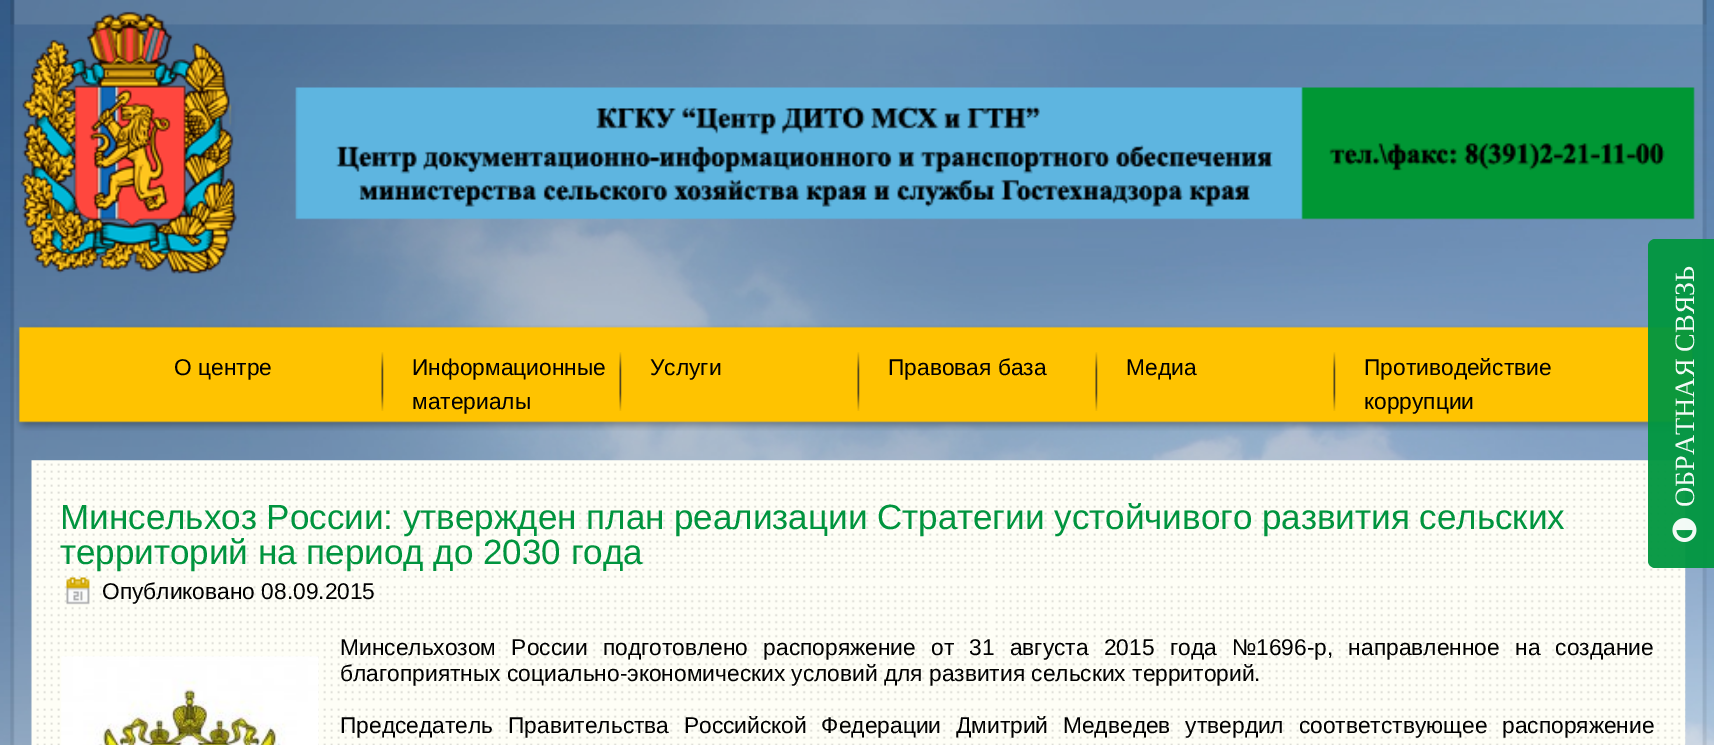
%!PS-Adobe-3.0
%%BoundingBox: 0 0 1714 745
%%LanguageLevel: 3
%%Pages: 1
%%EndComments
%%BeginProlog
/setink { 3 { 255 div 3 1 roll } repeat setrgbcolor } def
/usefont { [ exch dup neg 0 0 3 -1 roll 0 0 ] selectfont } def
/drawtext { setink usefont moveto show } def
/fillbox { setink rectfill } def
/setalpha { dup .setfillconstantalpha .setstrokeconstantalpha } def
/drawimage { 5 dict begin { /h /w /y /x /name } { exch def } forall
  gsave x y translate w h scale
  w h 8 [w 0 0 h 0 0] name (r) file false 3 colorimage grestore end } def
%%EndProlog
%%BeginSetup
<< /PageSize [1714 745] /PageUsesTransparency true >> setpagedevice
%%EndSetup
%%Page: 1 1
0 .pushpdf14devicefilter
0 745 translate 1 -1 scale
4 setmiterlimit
0 0 1714 745 255 255 255 fillbox
(assets/img1.rgb) 0 0 1714 745 drawimage
(assets/img2.rgb) 10 0 1677 25 drawimage
(assets/img3.rgb) 10 0 1677 25 drawimage
(assets/img7.rgb) 1687 24 20 721 drawimage
(assets/img4.rgb) 1687 0 20 25 drawimage
(assets/img5.rgb) 1687 0 20 25 drawimage
(assets/img6.rgb) 10 24 1677 721 drawimage
(assets/img8.rgb) 16 11 1682 420 drawimage
(О центре) 174 375 /LiberationSans-Regular 22.75 0 0 0 drawtext
(assets/img9.rgb) 381 352 3 59 drawimage
(Информационные) 412 375 /LiberationSans-Regular 22.75 0 0 0 drawtext
(материалы) 412 409 /LiberationSans-Regular 22.75 0 0 0 drawtext
(assets/img9.rgb) 619 352 3 59 drawimage
(Услуги) 650 375 /LiberationSans-Regular 22.75 0 0 0 drawtext
(assets/img9.rgb) 857 352 3 59 drawimage
(Правовая база) 888 375 /LiberationSans-Regular 22.75 0 0 0 drawtext
(assets/img9.rgb) 1095 352 3 59 drawimage
(Медиа) 1126 375 /LiberationSans-Regular 22.75 0 0 0 drawtext
(assets/img9.rgb) 1333 352 3 59 drawimage
(Противодействие) 1364 375 /LiberationSans-Regular 22.75 0 0 0 drawtext
(коррупции) 1364 409 /LiberationSans-Regular 22.75 0 0 0 drawtext
(assets/img10.rgb) 31 460 1655 285 drawimage
(Минсельхоз России: утвержден план реализации Стратегии устойчивого развития сельских) 60 529 /LiberationSans-Regular 35 0 148 62 drawtext
(территорий на период до 2030 года) 60 564 /LiberationSans-Regular 35 0 148 62 drawtext
(assets/img11.rgb) 66 577 24 28 drawimage
(Опубликовано 08.09.2015) 102 599 /LiberationSans-Regular 22.75 0 0 0 drawtext
(assets/img12.rgb) 61 656 258 89 drawimage
340 655 moveto 8.9 0 32 (Минсельхозом России подготовлено распоряжение от 31 августа 2015 года №1696-р, направленное на создание) widthshow
(благоприятных социально-экономических условий для развития сельских территорий.) 340 681 /LiberationSans-Regular 22.75 0 0 0 drawtext
340 733 moveto 8.5 0 32 (Председатель Правительства Российской Федерации Дмитрий Медведев утвердил соответствующее распоряжение) widthshow
0.95 setalpha
0 150 63 setink
1648 561 moveto 1648 246 lineto 1648 242 1652 239 1655 239 curveto 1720 239 lineto 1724 239 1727 242 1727 246 curveto 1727 561 lineto 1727 565 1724 568 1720 568 curveto 1655 568 lineto 1652 568 1648 565 1648 561 curveto closepath fill
/LiberationSerif-Regular 28 usefont
1 setalpha
243 250 246 setink
gsave 1694 507 translate -90 rotate 0 0 moveto (ОБРАТНАЯ СВЯЗЬ) show grestore
(assets/img13.rgb) 1672 518 25 24 drawimage
.poppdf14devicefilter showpage
%%EOF
